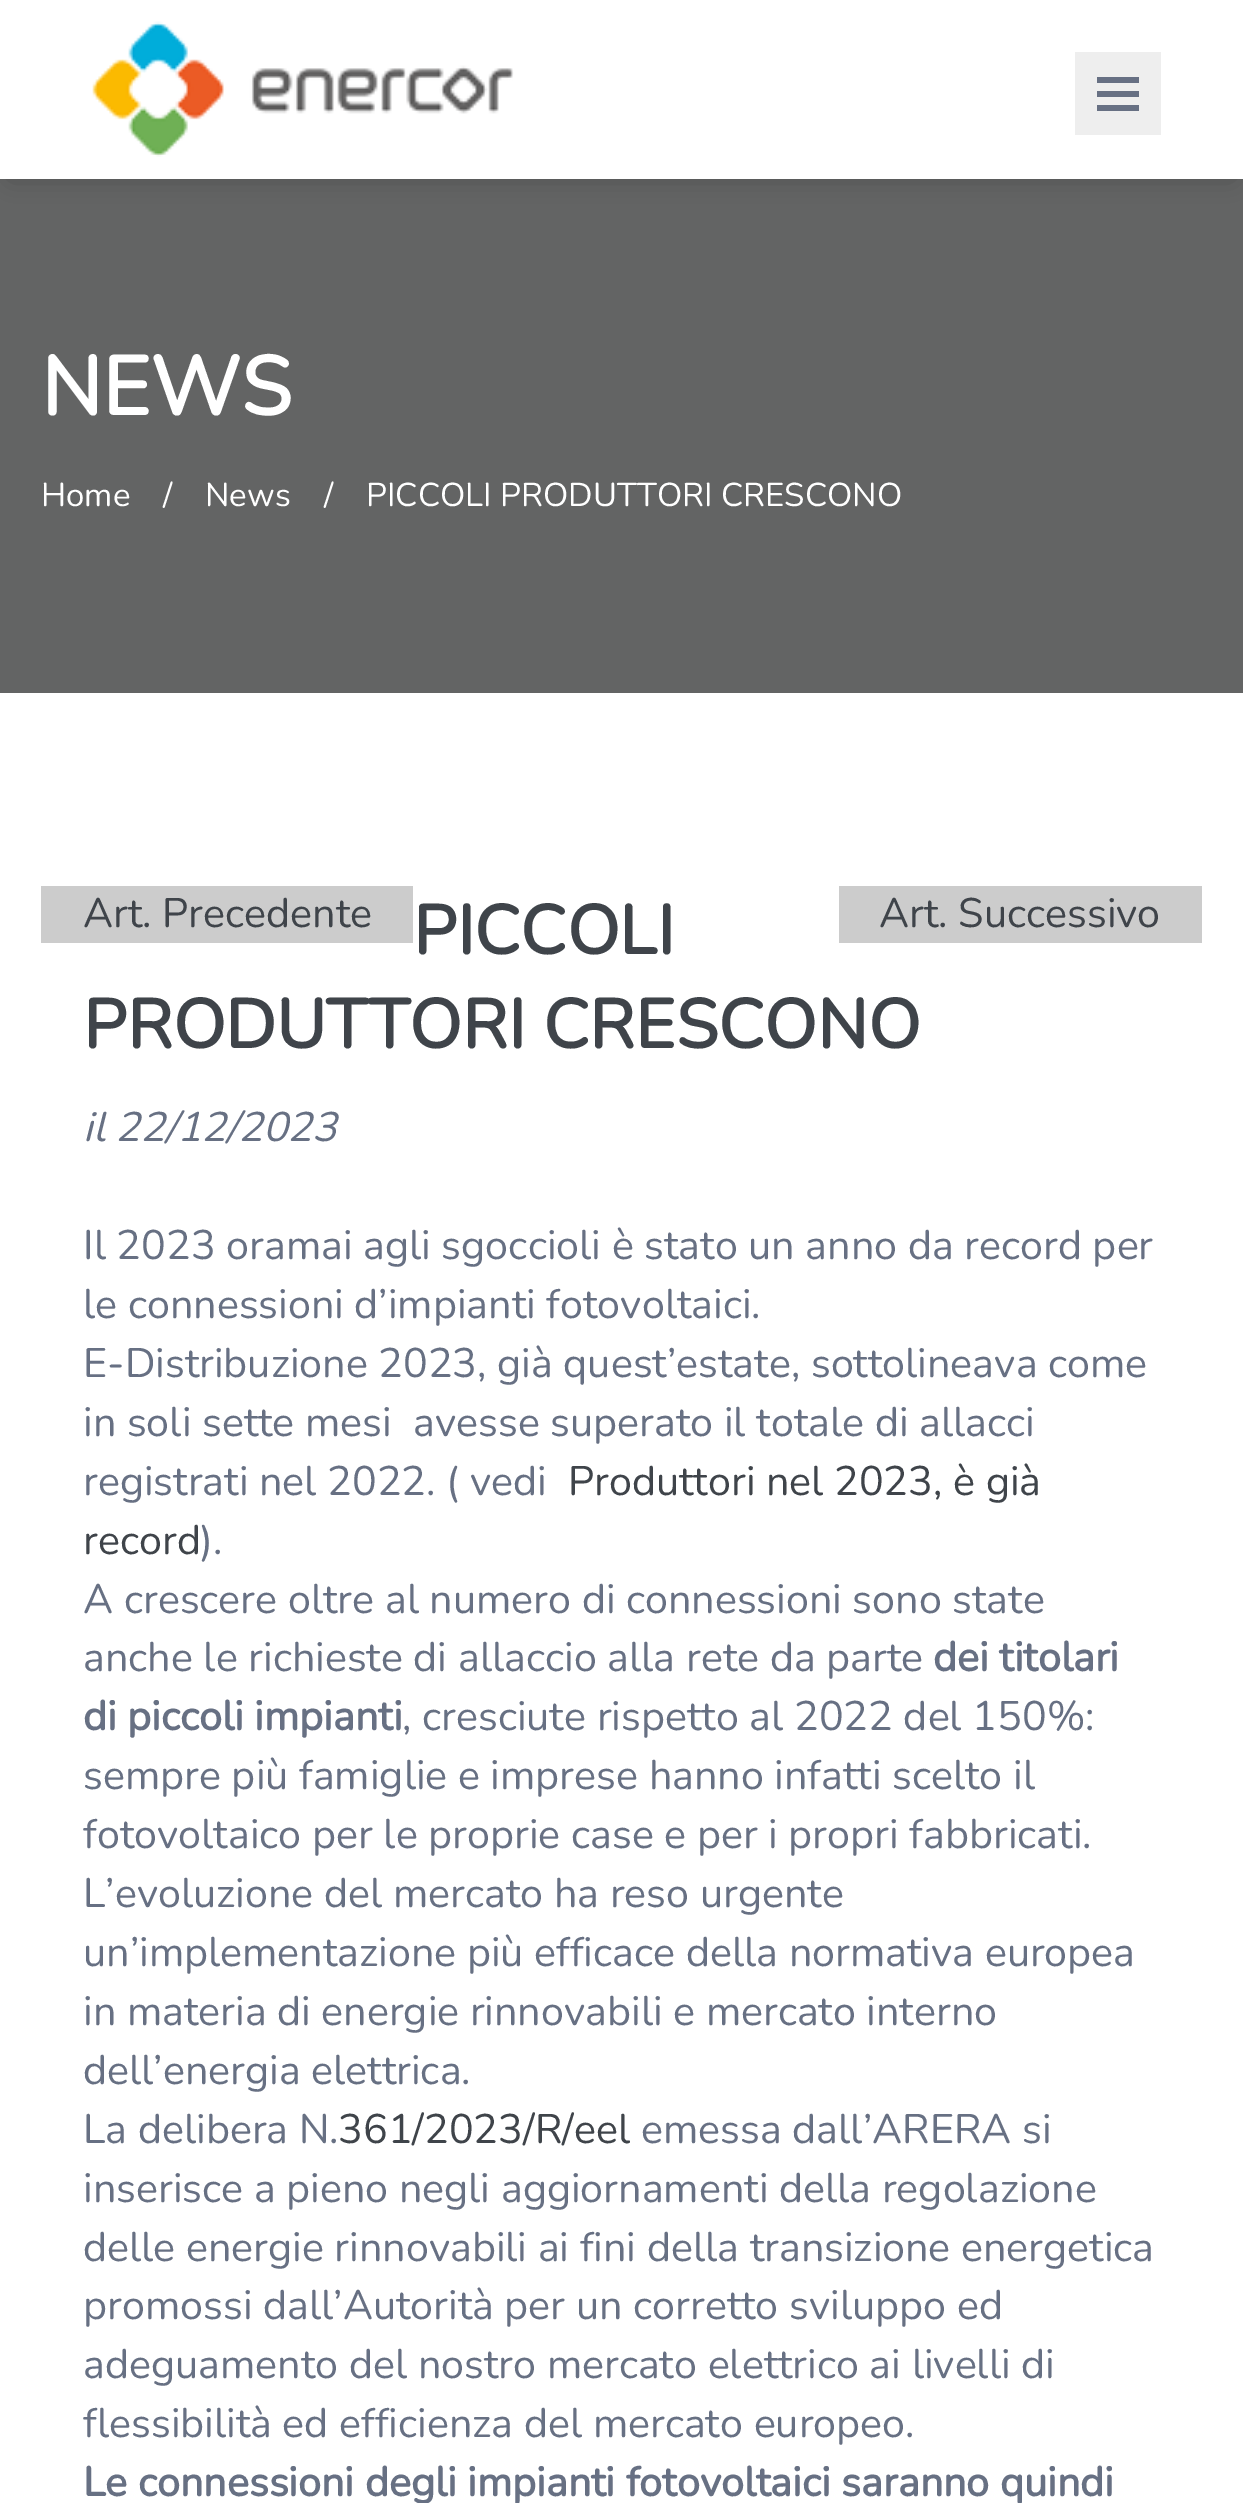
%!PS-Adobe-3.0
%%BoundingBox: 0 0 1243 2503
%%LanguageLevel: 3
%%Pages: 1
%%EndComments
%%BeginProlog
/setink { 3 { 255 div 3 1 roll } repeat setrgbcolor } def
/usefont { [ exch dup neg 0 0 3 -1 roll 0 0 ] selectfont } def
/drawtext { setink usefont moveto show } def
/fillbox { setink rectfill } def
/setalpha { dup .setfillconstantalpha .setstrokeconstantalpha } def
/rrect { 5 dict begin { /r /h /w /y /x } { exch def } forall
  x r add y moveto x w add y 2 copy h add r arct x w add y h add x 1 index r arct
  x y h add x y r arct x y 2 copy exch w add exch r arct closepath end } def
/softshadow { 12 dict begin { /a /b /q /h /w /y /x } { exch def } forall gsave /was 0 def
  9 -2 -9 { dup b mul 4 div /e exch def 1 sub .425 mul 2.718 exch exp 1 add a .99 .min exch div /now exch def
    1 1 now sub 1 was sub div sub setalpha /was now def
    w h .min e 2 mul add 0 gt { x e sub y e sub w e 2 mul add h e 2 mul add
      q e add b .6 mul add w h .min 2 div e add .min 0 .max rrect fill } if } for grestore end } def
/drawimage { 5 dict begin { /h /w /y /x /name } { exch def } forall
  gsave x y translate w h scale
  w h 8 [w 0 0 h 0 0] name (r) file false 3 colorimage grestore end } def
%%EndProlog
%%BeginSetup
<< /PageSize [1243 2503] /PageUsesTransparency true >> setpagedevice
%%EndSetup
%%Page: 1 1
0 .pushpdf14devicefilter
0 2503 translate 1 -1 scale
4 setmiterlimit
0 0 1243 2503 255 255 255 fillbox
0 179 1243 514 99 100 100 fillbox
0 0 0 setink
11 19 1221 157 0 12.5 0.25 softshadow
0 0 1243 179 255 255 255 fillbox
(assets/img1.rgb) 92 21 422 136 drawimage
1075 52 86 83 238 238 238 fillbox
1097 77 42 6 103 112 131 fillbox
1097 91 42 6 103 112 131 fillbox
1097 105 42 6 103 112 131 fillbox
(NEWS) 41 415 /Nunito-Bold 82.5 255 255 255 drawtext
(Home) 41 506 /Nunito-ExtraLight 33 255 255 255 drawtext
(/) 163 506 /Nunito-ExtraLight 33 255 255 255 drawtext
(News) 205 506 /Nunito-ExtraLight 33 255 255 255 drawtext
(/) 324 506 /Nunito-ExtraLight 33 255 255 255 drawtext
(PICCOLI PRODUTTORI CRESCONO) 366 506 /Nunito-ExtraLight 33 255 255 255 drawtext
41 886 372 57 204 204 204 fillbox
(Art. Precedente) 83 927 /Nunito-ExtraLight 41.25 63 68 74 drawtext
839 886 363 57 204 204 204 fillbox
(Art. Successivo) 879 927 /Nunito-ExtraLight 41.25 63 68 74 drawtext
(PICCOLI) 413 954 /Nunito-Bold 68.75 63 68 74 drawtext
(PRODUTTORI CRESCONO) 83 1048 /Nunito-Bold 68.75 63 68 74 drawtext
(il 22/12/2023) 83 1141 /Nunito-ExtraLightItalic 41.25 103 112 131 drawtext
(Il 2023 oramai agli sgoccioli è stato un anno da record per) 83 1259 /Nunito-ExtraLight 41.25 103 112 131 drawtext
(le connessioni d’impianti fotovoltaici.) 83 1318 /Nunito-ExtraLight 41.25 103 112 131 drawtext
(E-Distribuzione 2023, già quest’estate, sottolineava come) 83 1377 /Nunito-ExtraLight 41.25 103 112 131 drawtext
(in soli sette mesi  avesse superato il totale di allacci) 83 1436 /Nunito-ExtraLight 41.25 103 112 131 drawtext
(registrati nel 2022. \( vedi) 83 1495 /Nunito-ExtraLight 41.25 103 112 131 drawtext
(Produttori nel 2023, è già) 568 1495 /Nunito-ExtraLight 41.25 63 68 74 drawtext
(record) 83 1554 /Nunito-ExtraLight 41.25 63 68 74 drawtext
(\).) 200 1554 /Nunito-ExtraLight 41.25 103 112 131 drawtext
(A crescere oltre al numero di connessioni sono state) 83 1613 /Nunito-ExtraLight 41.25 103 112 131 drawtext
(anche le richieste di allaccio alla rete da parte) 83 1671 /Nunito-ExtraLight 41.25 103 112 131 drawtext
(dei titolari) 933 1671 /Nunito-Bold 41.25 103 112 131 drawtext
(di piccoli impianti) 83 1730 /Nunito-Bold 41.25 103 112 131 drawtext
(, cresciute rispetto al 2022 del 150%:) 402 1730 /Nunito-ExtraLight 41.25 103 112 131 drawtext
(sempre più famiglie e imprese hanno infatti scelto il) 83 1789 /Nunito-ExtraLight 41.25 103 112 131 drawtext
(fotovoltaico per le proprie case e per i propri fabbricati.) 83 1848 /Nunito-ExtraLight 41.25 103 112 131 drawtext
(L’evoluzione del mercato ha reso urgente) 83 1907 /Nunito-ExtraLight 41.25 103 112 131 drawtext
(un’implementazione più efficace della normativa europea) 83 1966 /Nunito-ExtraLight 41.25 103 112 131 drawtext
(in materia di energie rinnovabili e mercato interno) 83 2025 /Nunito-ExtraLight 41.25 103 112 131 drawtext
(dell’energia elettrica.) 83 2084 /Nunito-ExtraLight 41.25 103 112 131 drawtext
(La delibera N.) 83 2143 /Nunito-ExtraLight 41.25 103 112 131 drawtext
(361/2023/R/eel) 338 2143 /Nunito-ExtraLight 41.25 63 68 74 drawtext
(emessa dall’ARERA si) 641 2143 /Nunito-ExtraLight 41.25 103 112 131 drawtext
(inserisce a pieno negli aggiornamenti della regolazione) 83 2202 /Nunito-ExtraLight 41.25 103 112 131 drawtext
(delle energie rinnovabili ai fini della transizione energetica) 83 2261 /Nunito-ExtraLight 41.25 103 112 131 drawtext
(promossi dall’Autorità per un corretto sviluppo ed) 83 2319 /Nunito-ExtraLight 41.25 103 112 131 drawtext
(adeguamento del nostro mercato elettrico ai livelli di) 83 2378 /Nunito-ExtraLight 41.25 103 112 131 drawtext
(flessibilità ed efficienza del mercato europeo.) 83 2437 /Nunito-ExtraLight 41.25 103 112 131 drawtext
(Le connessioni degli impianti fotovoltaici saranno quindi) 83 2496 /Nunito-Bold 41.25 103 112 131 drawtext
.poppdf14devicefilter showpage
%%EOF
